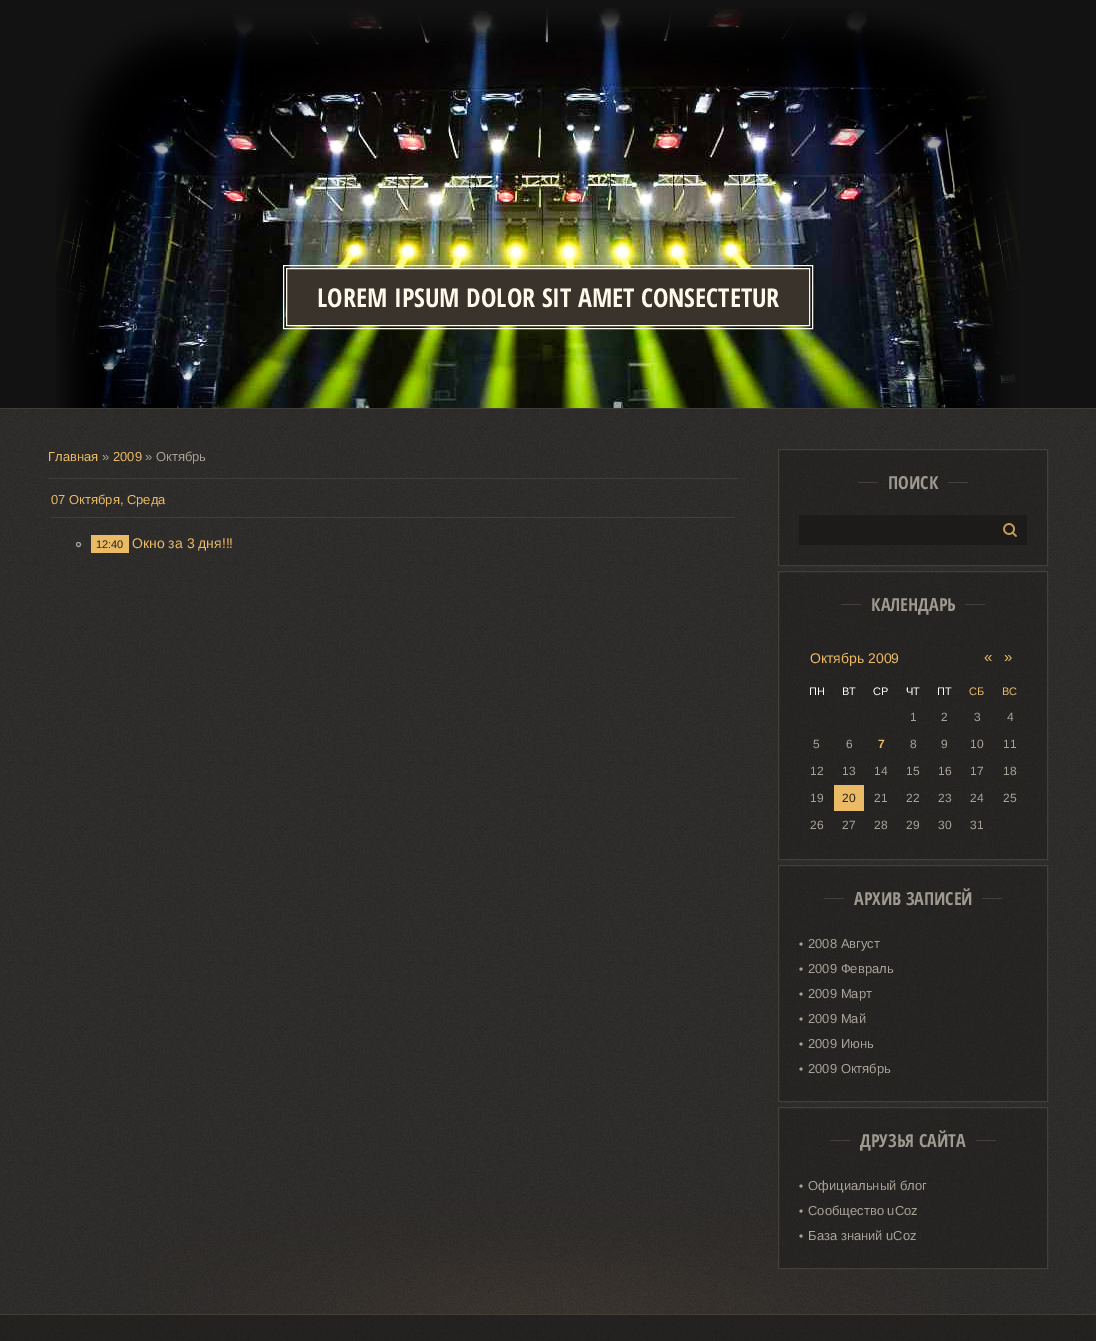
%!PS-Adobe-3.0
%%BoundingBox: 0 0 1096 1341
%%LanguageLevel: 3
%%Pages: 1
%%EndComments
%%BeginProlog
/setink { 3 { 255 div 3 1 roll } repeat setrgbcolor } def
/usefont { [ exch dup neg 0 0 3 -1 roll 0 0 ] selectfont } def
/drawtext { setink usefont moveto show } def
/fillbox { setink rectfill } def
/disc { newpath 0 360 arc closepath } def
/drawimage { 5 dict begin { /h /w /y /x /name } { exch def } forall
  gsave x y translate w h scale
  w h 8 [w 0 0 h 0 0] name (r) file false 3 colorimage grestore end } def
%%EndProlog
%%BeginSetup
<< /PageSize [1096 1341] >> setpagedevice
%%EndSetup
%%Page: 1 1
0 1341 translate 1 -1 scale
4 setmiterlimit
0 0 1096 1341 255 255 255 fillbox
(assets/img1.rgb) 0 409 1096 905 drawimage
0 0 1096 408 19 18 18 fillbox
(assets/img2.rgb) 56 8 964 400 drawimage
0 408 1096 1 64 60 56 fillbox
255 249 235 setink
283.5 265.5 529 63 rectstroke
57 51 43 setink
286.5 268.5 moveto 809.5 268.5 lineto 809.5 325.5 lineto 286.5 325.5 lineto closepath gsave fill grestore
255 249 235 setink
stroke
(LOREM IPSUM DOLOR SIT AMET CONSECTETUR) 317 307 /OpenSansCondensed-Bold 26 255 249 235 drawtext
(assets/img3.rgb) 148 1164 800 150 drawimage
(Главная) 48 461 /LiberationSans-Regular 13 235 186 100 drawtext
(») 102 461 /LiberationSans-Regular 13 169 163 151 drawtext
(2009) 113 461 /LiberationSans-Regular 13 235 186 100 drawtext
(» Октябрь) 145 461 /LiberationSans-Regular 13 169 163 151 drawtext
48 478 690 1 65 61 57 fillbox
(07 Октября, Среда) 51 504 /LiberationSans-Regular 13 235 186 100 drawtext
51 517 684 1 65 61 57 fillbox
169 163 151 setink
78.5 544.5 2 disc stroke
91 535 38 18 235 186 100 fillbox
(12:40) 96 548 /LiberationSans-Regular 11 37 35 34 drawtext
(Окно за 3 дня!!!) 132 548 /LiberationSans-Regular 14 235 186 100 drawtext
(assets/img4.rgb) 779 450 268 115 drawimage
67 62 56 setink
778.5 449.5 269 116 rectstroke
858 482 20 1 69 62 58 fillbox
(ПОИСК) 888 489 /OpenSansCondensed-Bold 18 159 153 144 drawtext
948 482 20 1 69 62 58 fillbox
799 515 228 30 28 27 26 fillbox
(assets/img5.rgb) 1003 523 14 14 drawimage
(assets/img6.rgb) 779 572 268 287 drawimage
67 62 56 setink
778.5 571.5 269 288 rectstroke
841 604 20 1 69 62 58 fillbox
(КАЛЕНДАРЬ) 871 611 /OpenSansCondensed-Bold 18 159 153 144 drawtext
965 604 20 1 69 62 58 fillbox
(Октябрь 2009) 810 663 /LiberationSans-Regular 14 235 186 100 drawtext
(«) 984 662 /LiberationSans-Regular 15 235 186 100 drawtext
(») 1004 662 /LiberationSans-Regular 15 235 186 100 drawtext
(ПН) 809 695 /LiberationSans-Regular 11 255 255 255 drawtext
(ВТ) 842 695 /LiberationSans-Regular 11 255 255 255 drawtext
(СР) 873 695 /LiberationSans-Regular 11 255 255 255 drawtext
(ЧТ) 906 695 /LiberationSans-Regular 11 255 255 255 drawtext
(ПТ) 937 695 /LiberationSans-Regular 11 255 255 255 drawtext
(СБ) 969 695 /LiberationSans-Regular 11 235 186 100 drawtext
(ВС) 1002 695 /LiberationSans-Regular 11 235 186 100 drawtext
(1) 910 721 /LiberationSans-Regular 12 169 163 151 drawtext
(2) 941 721 /LiberationSans-Regular 12 169 163 151 drawtext
(3) 974 721 /LiberationSans-Regular 12 169 163 151 drawtext
(4) 1007 721 /LiberationSans-Regular 12 169 163 151 drawtext
(5) 813 748 /LiberationSans-Regular 12 169 163 151 drawtext
(6) 846 748 /LiberationSans-Regular 12 169 163 151 drawtext
(7) 878 748 /LiberationSans-Bold 12 235 186 100 drawtext
(8) 910 748 /LiberationSans-Regular 12 169 163 151 drawtext
(9) 941 748 /LiberationSans-Regular 12 169 163 151 drawtext
(10) 970 748 /LiberationSans-Regular 12 169 163 151 drawtext
(11) 1003 748 /LiberationSans-Regular 12 169 163 151 drawtext
(12) 810 775 /LiberationSans-Regular 12 169 163 151 drawtext
(13) 842 775 /LiberationSans-Regular 12 169 163 151 drawtext
(14) 874 775 /LiberationSans-Regular 12 169 163 151 drawtext
(15) 906 775 /LiberationSans-Regular 12 169 163 151 drawtext
(16) 938 775 /LiberationSans-Regular 12 169 163 151 drawtext
(17) 970 775 /LiberationSans-Regular 12 169 163 151 drawtext
(18) 1003 775 /LiberationSans-Regular 12 169 163 151 drawtext
(19) 810 802 /LiberationSans-Regular 12 169 163 151 drawtext
834 785 30 26 235 186 100 fillbox
(20) 842 802 /LiberationSans-Regular 12 37 35 34 drawtext
(21) 874 802 /LiberationSans-Regular 12 169 163 151 drawtext
(22) 906 802 /LiberationSans-Regular 12 169 163 151 drawtext
(23) 938 802 /LiberationSans-Regular 12 169 163 151 drawtext
(24) 970 802 /LiberationSans-Regular 12 169 163 151 drawtext
(25) 1003 802 /LiberationSans-Regular 12 169 163 151 drawtext
(26) 810 829 /LiberationSans-Regular 12 169 163 151 drawtext
(27) 842 829 /LiberationSans-Regular 12 169 163 151 drawtext
(28) 874 829 /LiberationSans-Regular 12 169 163 151 drawtext
(29) 906 829 /LiberationSans-Regular 12 169 163 151 drawtext
(30) 938 829 /LiberationSans-Regular 12 169 163 151 drawtext
(31) 970 829 /LiberationSans-Regular 12 169 163 151 drawtext
(assets/img7.rgb) 779 866 268 235 drawimage
67 62 56 setink
778.5 865.5 269 236 rectstroke
824 898 20 1 69 62 58 fillbox
(АРХИВ ЗАПИСЕЙ) 854 905 /OpenSansCondensed-Bold 18 159 153 144 drawtext
982 898 20 1 69 62 58 fillbox
(•) 799 948 /LiberationSans-Regular 12 169 163 151 drawtext
(2008 Август) 808 948 /LiberationSans-Regular 13 169 163 151 drawtext
(•) 799 973 /LiberationSans-Regular 12 169 163 151 drawtext
(2009 Февраль) 808 973 /LiberationSans-Regular 13 169 163 151 drawtext
(•) 799 998 /LiberationSans-Regular 12 169 163 151 drawtext
(2009 Март) 808 998 /LiberationSans-Regular 13 169 163 151 drawtext
(•) 799 1023 /LiberationSans-Regular 12 169 163 151 drawtext
(2009 Май) 808 1023 /LiberationSans-Regular 13 169 163 151 drawtext
(•) 799 1048 /LiberationSans-Regular 12 169 163 151 drawtext
(2009 Июнь) 808 1048 /LiberationSans-Regular 13 169 163 151 drawtext
(•) 799 1073 /LiberationSans-Regular 12 169 163 151 drawtext
(2009 Октябрь) 808 1073 /LiberationSans-Regular 13 169 163 151 drawtext
(assets/img8.rgb) 779 1108 268 160 drawimage
67 62 56 setink
778.5 1107.5 269 161 rectstroke
830 1140 20 1 69 62 58 fillbox
(ДРУЗЬЯ САЙТА) 860 1147 /OpenSansCondensed-Bold 18 159 153 144 drawtext
976 1140 20 1 69 62 58 fillbox
(•) 799 1190 /LiberationSans-Regular 12 169 163 151 drawtext
(Официальный блог) 808 1190 /LiberationSans-Regular 13 169 163 151 drawtext
(•) 799 1215 /LiberationSans-Regular 12 169 163 151 drawtext
(Сообщество uCoz) 808 1215 /LiberationSans-Regular 13 169 163 151 drawtext
(•) 799 1240 /LiberationSans-Regular 12 169 163 151 drawtext
(База знаний uCoz) 808 1240 /LiberationSans-Regular 13 169 163 151 drawtext
1094 1315 2 26 36 35 34 fillbox
(assets/img9.rgb) 0 1315 1094 26 drawimage
0 1314 1096 1 67 62 56 fillbox
showpage
%%EOF
